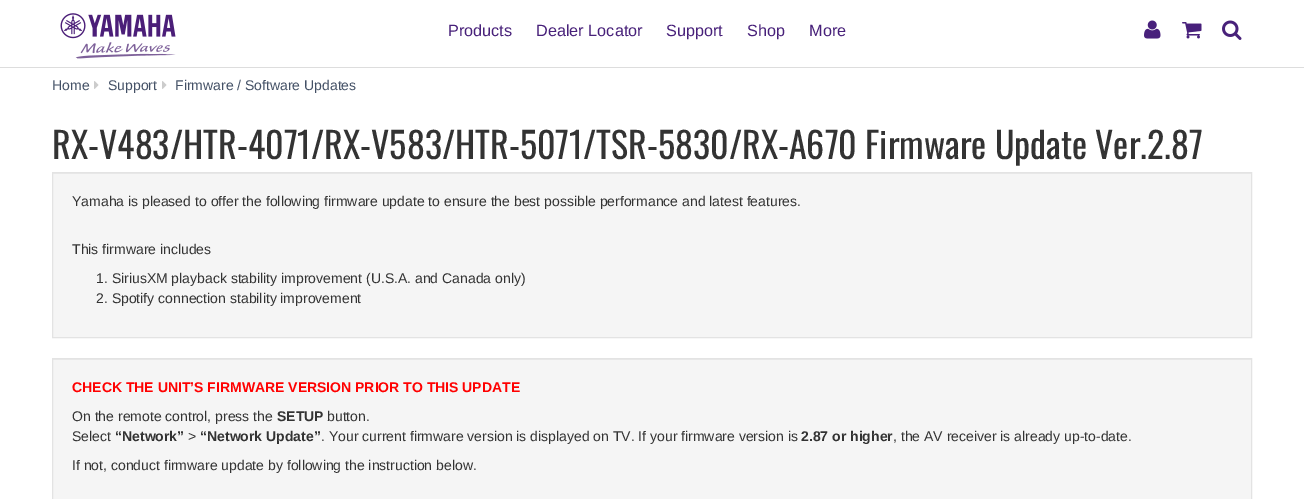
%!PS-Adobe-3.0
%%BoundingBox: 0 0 1304 499
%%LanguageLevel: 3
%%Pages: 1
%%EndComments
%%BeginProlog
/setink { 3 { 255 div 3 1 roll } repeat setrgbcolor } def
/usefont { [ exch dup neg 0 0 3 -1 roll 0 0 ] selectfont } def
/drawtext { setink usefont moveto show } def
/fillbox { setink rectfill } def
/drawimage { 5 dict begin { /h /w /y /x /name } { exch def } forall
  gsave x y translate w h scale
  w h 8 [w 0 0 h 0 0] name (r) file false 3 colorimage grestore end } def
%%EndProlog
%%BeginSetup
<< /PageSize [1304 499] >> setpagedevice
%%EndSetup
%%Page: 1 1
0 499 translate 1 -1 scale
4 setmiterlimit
0 0 1304 499 255 255 255 fillbox
0 67 1304 1 221 221 221 fillbox
(assets/img1.rgb) 60 13 116 46 drawimage
(Products) 448 36 /LiberationSans-Regular 16.25 72 33 122 drawtext
(Dealer Locator) 536 36 /LiberationSans-Regular 16.25 72 33 122 drawtext
(Support) 666 36 /LiberationSans-Regular 16.25 72 33 122 drawtext
(Shop) 747 36 /LiberationSans-Regular 16.25 72 33 122 drawtext
(More) 809 36 /LiberationSans-Regular 16.25 72 33 122 drawtext
(assets/img2.rgb) 1144 20 17 19 drawimage
(assets/img3.rgb) 1182 22 20 17 drawimage
(assets/img4.rgb) 1222 20 20 20 drawimage
(Home) 52 90 /LiberationSans-Regular 14 68 81 102 drawtext
(assets/img5.rgb) 94 81 5 8 drawimage
(Support) 108 90 /LiberationSans-Regular 14 68 81 102 drawtext
(assets/img5.rgb) 162 81 5 8 drawimage
(Firmware / Software Updates) 175 90 /LiberationSans-Regular 14 68 81 102 drawtext
(RX-V483/HTR-4071/RX-V583/HTR-5071/TSR-5830/RX-A670 Firmware Update Ver.2.87) 52 159 /Oswald-Regular 36 51 51 51 drawtext
53 174 1198 163 245 245 245 fillbox
53 173 1198 1 233 233 233 fillbox
227 227 227 setink
52.5 172.5 1199 165 rectstroke
(Yamaha is pleased to offer the following firmware update to ensure the best possible performance and latest features.) 72 206 /LiberationSans-Regular 14 51 51 51 drawtext
(This firmware includes) 72 254 /LiberationSans-Regular 14 51 51 51 drawtext
(1. SiriusXM playback stability improvement \(U.S.A. and Canada only\)) 96 283 /LiberationSans-Regular 14 51 51 51 drawtext
(2. Spotify connection stability improvement) 96 303 /LiberationSans-Regular 14 51 51 51 drawtext
53 360 1198 139 245 245 245 fillbox
53 359 1198 1 233 233 233 fillbox
227 227 227 setink
52.5 358.5 1199 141 rectstroke
(CHECK THE UNIT’S FIRMWARE VERSION PRIOR TO THIS UPDATE) 72 392 /LiberationSans-Bold 14 255 0 0 drawtext
(On the remote control, press the) 72 421 /LiberationSans-Regular 14 51 51 51 drawtext
(SETUP) 277 421 /LiberationSans-Bold 14 51 51 51 drawtext
(button.) 327 421 /LiberationSans-Regular 14 51 51 51 drawtext
(Select) 72 441 /LiberationSans-Regular 14 51 51 51 drawtext
(“Network”) 115 441 /LiberationSans-Bold 14 51 51 51 drawtext
(>) 188 441 /LiberationSans-Regular 14 51 51 51 drawtext
(“Network Update”) 200 441 /LiberationSans-Bold 14 51 51 51 drawtext
(. Your current firmware version is displayed on TV. If your firmware version is) 321 441 /LiberationSans-Regular 14 51 51 51 drawtext
(2.87 or higher) 801 441 /LiberationSans-Bold 14 51 51 51 drawtext
(, the AV receiver is already up-to-date.) 893 441 /LiberationSans-Regular 14 51 51 51 drawtext
(If not, conduct firmware update by following the instruction below.) 72 470 /LiberationSans-Regular 14 51 51 51 drawtext
showpage
%%EOF
